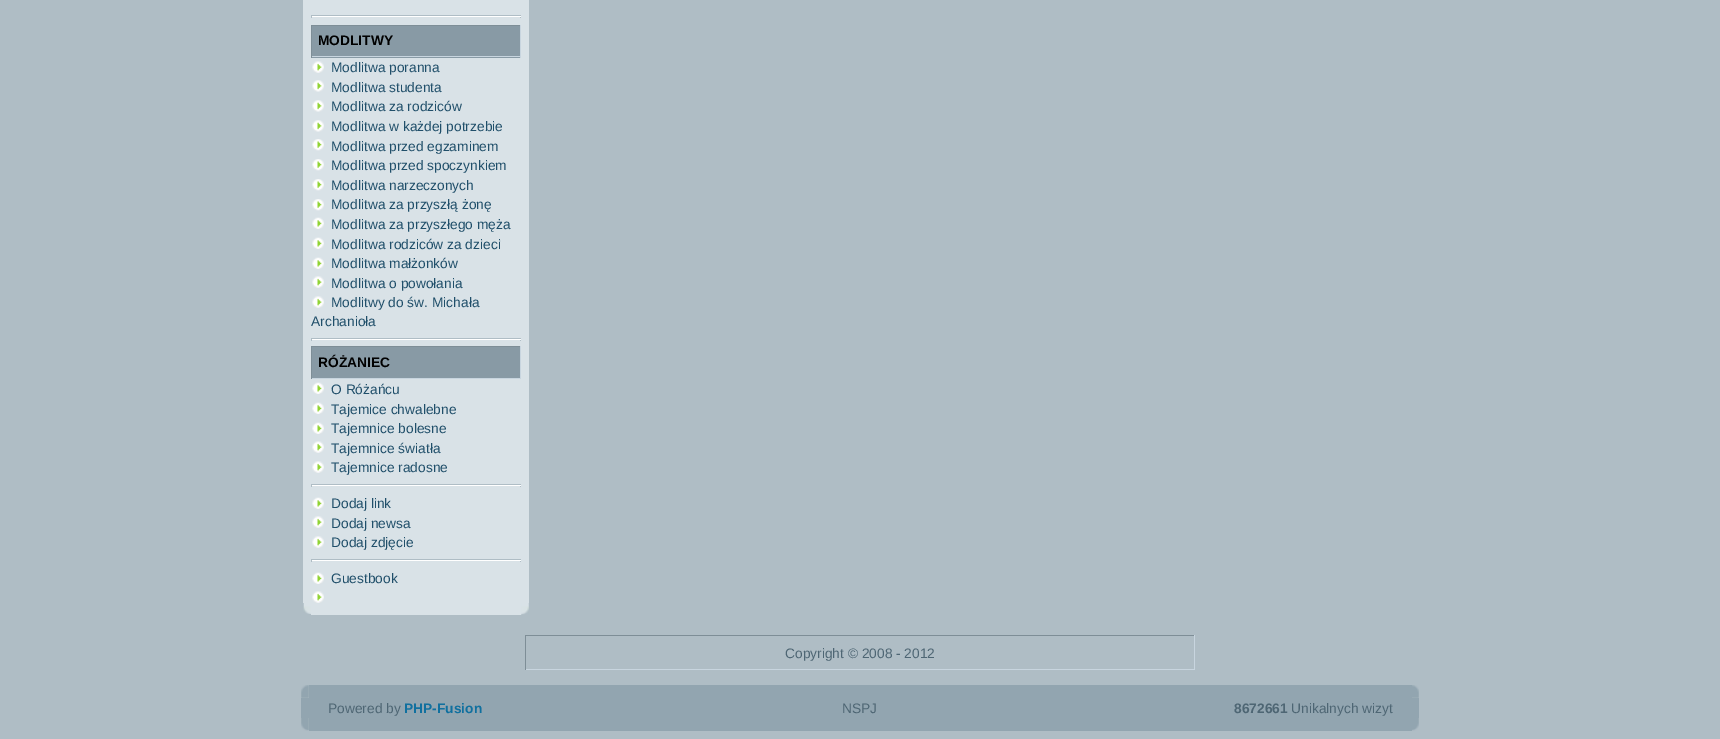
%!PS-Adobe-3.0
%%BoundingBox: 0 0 1720 739
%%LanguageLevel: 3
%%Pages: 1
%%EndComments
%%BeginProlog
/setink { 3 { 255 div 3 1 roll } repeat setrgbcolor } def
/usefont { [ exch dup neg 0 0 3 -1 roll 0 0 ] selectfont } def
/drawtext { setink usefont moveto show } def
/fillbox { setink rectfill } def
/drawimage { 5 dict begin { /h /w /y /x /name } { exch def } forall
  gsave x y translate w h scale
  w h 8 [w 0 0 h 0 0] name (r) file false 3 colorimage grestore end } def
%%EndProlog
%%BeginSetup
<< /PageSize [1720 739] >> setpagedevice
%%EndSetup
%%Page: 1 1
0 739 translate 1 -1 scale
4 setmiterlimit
0 0 1720 739 175 189 197 fillbox
303 0 226 603 217 226 231 fillbox
311 15 210 1 175 189 197 fillbox
520 15 1 3 175 189 197 fillbox
311 16 210 1 255 255 255 fillbox
311 15 1 3 175 189 197 fillbox
312 26 208 32 136 154 165 fillbox
311 25 210 1 126 142 151 fillbox
520 25 1 33 200 213 223 fillbox
311 56 210 1 200 213 223 fillbox
311 25 1 33 126 142 151 fillbox
(MODLITWY) 318 45 /LiberationSans-Bold 13.75 0 0 0 drawtext
(assets/img1.rgb) 312 61 12 12 drawimage
(Modlitwa poranna) 331 72 /LiberationSans-Regular 13.75 32 79 106 drawtext
(assets/img2.rgb) 312 80 12 12 drawimage
(Modlitwa studenta) 331 92 /LiberationSans-Regular 13.75 32 79 106 drawtext
(assets/img2.rgb) 312 100 12 12 drawimage
(Modlitwa za rodziców) 331 111 /LiberationSans-Regular 13.75 32 79 106 drawtext
(assets/img2.rgb) 312 120 12 12 drawimage
(Modlitwa w każdej potrzebie) 331 131 /LiberationSans-Regular 13.75 32 79 106 drawtext
(assets/img3.rgb) 312 139 12 12 drawimage
(Modlitwa przed egzaminem) 331 151 /LiberationSans-Regular 13.75 32 79 106 drawtext
(assets/img3.rgb) 312 159 12 12 drawimage
(Modlitwa przed spoczynkiem) 331 170 /LiberationSans-Regular 13.75 32 79 106 drawtext
(assets/img3.rgb) 312 179 12 12 drawimage
(Modlitwa narzeczonych) 331 190 /LiberationSans-Regular 13.75 32 79 106 drawtext
(assets/img3.rgb) 312 199 12 12 drawimage
(Modlitwa za przyszłą żonę) 331 209 /LiberationSans-Regular 13.75 32 79 106 drawtext
(assets/img4.rgb) 312 217 12 12 drawimage
(Modlitwa za przyszłego męża) 331 229 /LiberationSans-Regular 13.75 32 79 106 drawtext
(assets/img4.rgb) 312 237 12 12 drawimage
(Modlitwa rodziców za dzieci) 331 249 /LiberationSans-Regular 13.75 32 79 106 drawtext
(assets/img4.rgb) 312 257 12 12 drawimage
(Modlitwa małżonków) 331 268 /LiberationSans-Regular 13.75 32 79 106 drawtext
(assets/img1.rgb) 312 276 12 12 drawimage
(Modlitwa o powołania) 331 288 /LiberationSans-Regular 13.75 32 79 106 drawtext
(assets/img1.rgb) 312 296 12 12 drawimage
(Modlitwy do św. Michała) 331 307 /LiberationSans-Regular 13.75 32 79 106 drawtext
(Archanioła) 311 326 /LiberationSans-Regular 13.75 32 79 106 drawtext
311 338 210 1 175 189 197 fillbox
520 338 1 3 175 189 197 fillbox
311 339 210 1 255 255 255 fillbox
311 338 1 3 175 189 197 fillbox
312 347 208 31 136 154 165 fillbox
311 346 210 1 126 142 151 fillbox
520 346 1 33 200 213 223 fillbox
311 378 210 1 200 213 223 fillbox
311 346 1 33 126 142 151 fillbox
(RÓŻANIEC) 318 367 /LiberationSans-Bold 13.75 0 0 0 drawtext
(assets/img4.rgb) 312 382 12 12 drawimage
(O Różańcu) 331 394 /LiberationSans-Regular 13.75 32 79 106 drawtext
(assets/img4.rgb) 312 402 12 12 drawimage
(Tajemice chwalebne) 331 414 /LiberationSans-Regular 13.75 32 79 106 drawtext
(assets/img4.rgb) 312 422 12 12 drawimage
(Tajemnice bolesne) 331 433 /LiberationSans-Regular 13.75 32 79 106 drawtext
(assets/img5.rgb) 312 441 12 12 drawimage
(Tajemnice światła) 331 453 /LiberationSans-Regular 13.75 32 79 106 drawtext
(assets/img1.rgb) 312 461 12 12 drawimage
(Tajemnice radosne) 331 472 /LiberationSans-Regular 13.75 32 79 106 drawtext
311 484 210 1 175 189 197 fillbox
520 484 1 3 175 189 197 fillbox
311 485 210 1 255 255 255 fillbox
311 484 1 3 175 189 197 fillbox
(assets/img4.rgb) 312 497 12 12 drawimage
(Dodaj link) 331 508 /LiberationSans-Regular 13.75 32 79 106 drawtext
(assets/img1.rgb) 312 516 12 12 drawimage
(Dodaj newsa) 331 528 /LiberationSans-Regular 13.75 32 79 106 drawtext
(assets/img1.rgb) 312 536 12 12 drawimage
(Dodaj zdjęcie) 331 547 /LiberationSans-Regular 13.75 32 79 106 drawtext
311 559 210 1 175 189 197 fillbox
520 559 1 3 175 189 197 fillbox
311 560 210 1 255 255 255 fillbox
311 559 1 3 175 189 197 fillbox
(assets/img4.rgb) 312 572 12 12 drawimage
(Guestbook) 331 583 /LiberationSans-Regular 13.75 32 79 106 drawtext
(assets/img1.rgb) 312 591 12 12 drawimage
(assets/img6.rgb) 303 603 8 11 drawimage
311 603 211 12 217 226 231 fillbox
(assets/img7.rgb) 521 603 8 12 drawimage
525 635 670 1 126 142 151 fillbox
1194 635 1 35 200 213 223 fillbox
525 669 670 1 200 213 223 fillbox
525 635 1 35 126 142 151 fillbox
(Copyright © 2008 - 2012) 785 658 /LiberationSans-Regular 13.75 78 102 116 drawtext
(assets/img8.rgb) 301 685 8 13 drawimage
309 685 1103 13 146 165 176 fillbox
(assets/img9.rgb) 1412 685 7 13 drawimage
301 698 1118 20 146 165 176 fillbox
(Powered by) 328 713 /LiberationSans-Regular 13.75 78 102 116 drawtext
(PHP-Fusion) 404 713 /LiberationSans-Bold 13.75 16 112 159 drawtext
(NSPJ) 842 713 /LiberationSans-Regular 13.75 78 102 116 drawtext
(8672661) 1234 713 /LiberationSans-Bold 13.75 78 102 116 drawtext
(Unikalnych wizyt) 1291 713 /LiberationSans-Regular 13.75 78 102 116 drawtext
(assets/img10.rgb) 301 718 8 13 drawimage
309 718 1103 13 146 165 176 fillbox
(assets/img11.rgb) 1412 718 7 13 drawimage
showpage
%%EOF
